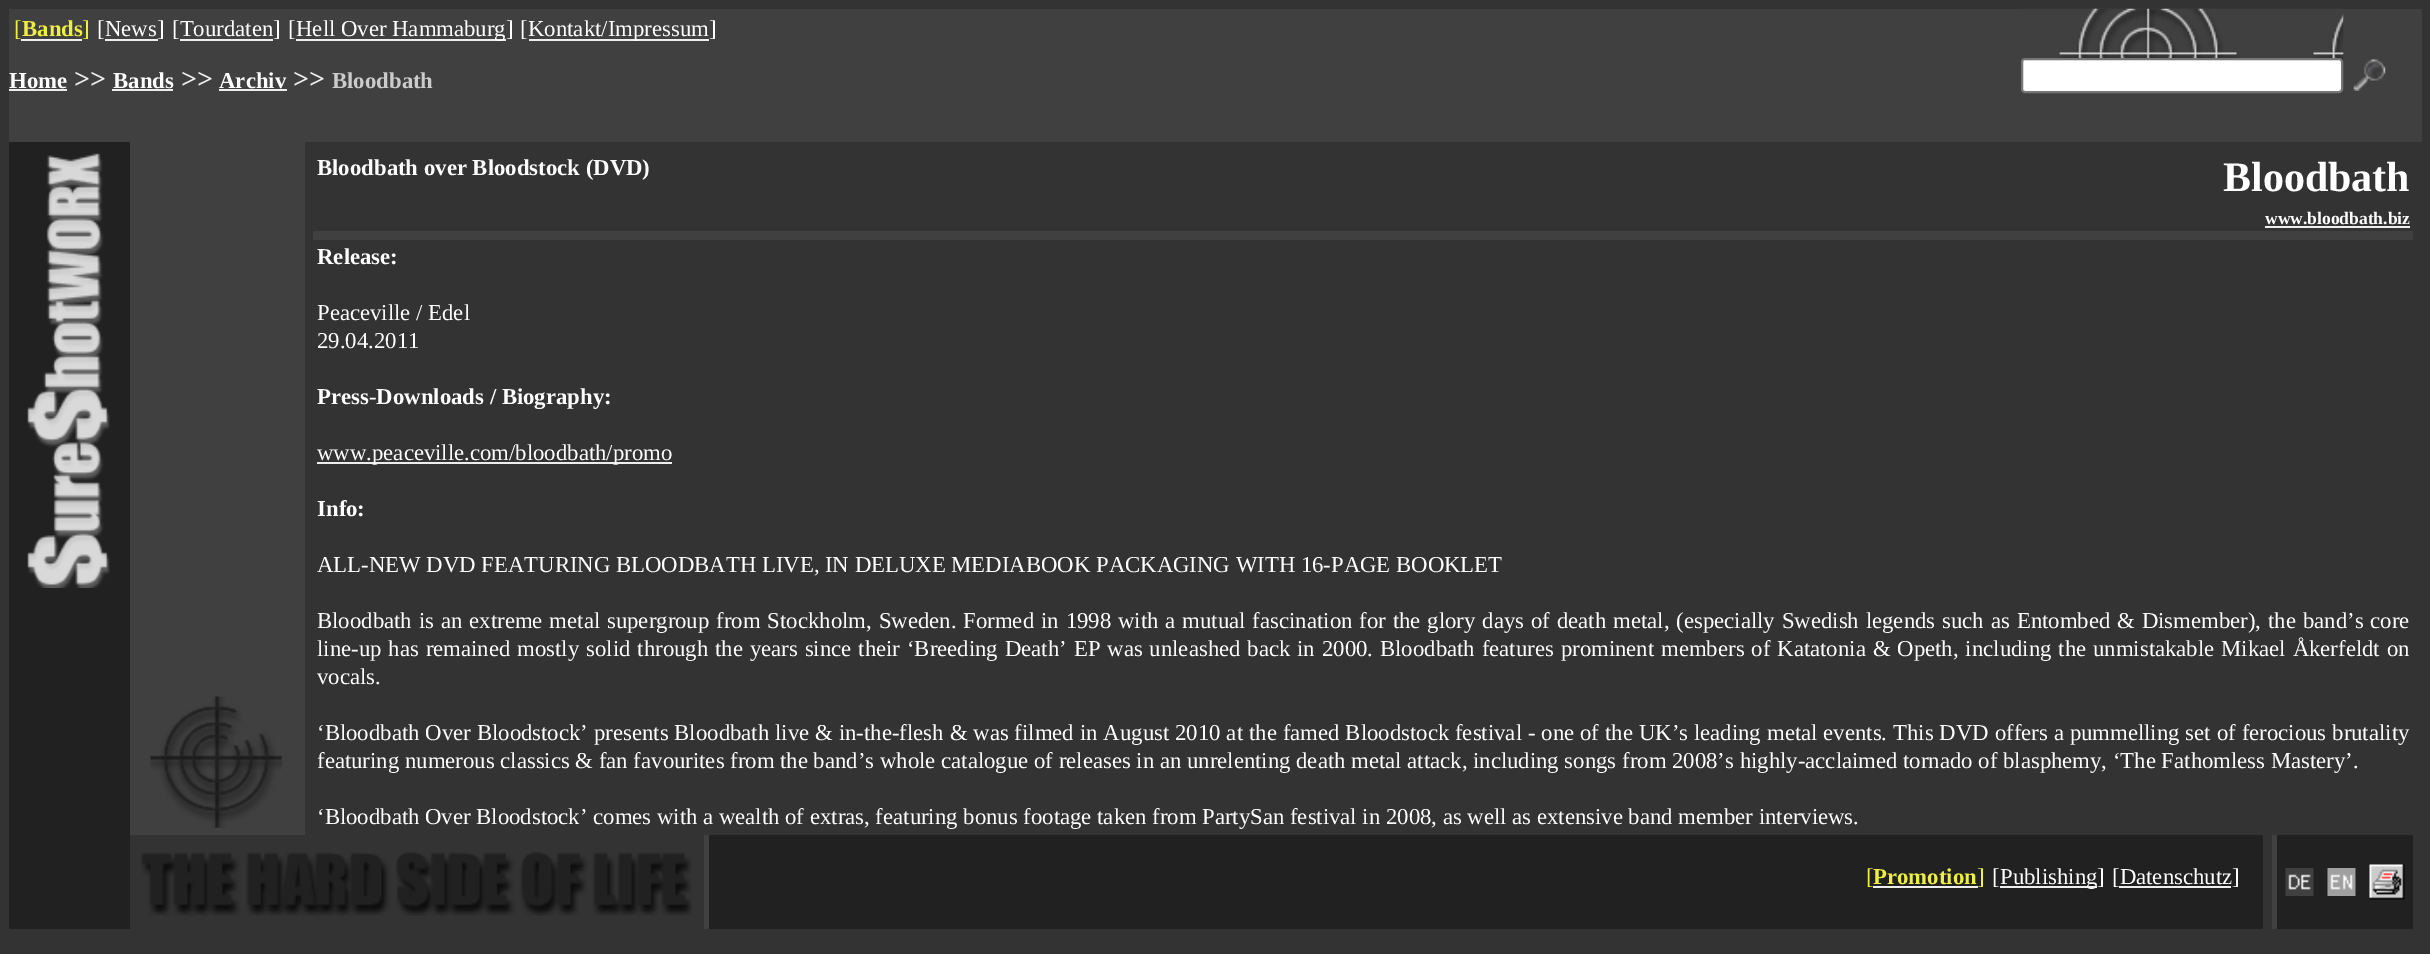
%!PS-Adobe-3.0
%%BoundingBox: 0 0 2430 954
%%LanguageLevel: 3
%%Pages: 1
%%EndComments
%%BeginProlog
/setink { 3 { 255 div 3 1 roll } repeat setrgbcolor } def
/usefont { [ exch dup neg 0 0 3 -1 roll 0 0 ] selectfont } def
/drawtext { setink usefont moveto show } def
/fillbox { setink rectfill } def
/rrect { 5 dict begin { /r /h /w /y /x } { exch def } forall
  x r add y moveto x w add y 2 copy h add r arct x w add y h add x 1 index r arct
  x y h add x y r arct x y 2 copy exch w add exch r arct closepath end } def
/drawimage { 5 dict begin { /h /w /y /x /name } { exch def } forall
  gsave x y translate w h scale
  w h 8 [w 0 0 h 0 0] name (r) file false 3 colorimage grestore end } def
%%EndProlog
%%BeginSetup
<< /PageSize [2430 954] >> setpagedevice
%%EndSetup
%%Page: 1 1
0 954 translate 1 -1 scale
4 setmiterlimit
0 0 2430 954 51 51 51 fillbox
9 9 2413 133 64 64 64 fillbox
([) 14 36 /LiberationSerif-Regular 22.75 238 238 68 drawtext
21 39 61 2 238 238 238 fillbox
(Bands) 22 36 /LiberationSerif-Bold 22.75 238 238 68 drawtext
(]) 82 36 /LiberationSerif-Regular 22.75 238 238 68 drawtext
([News) 97 36 /LiberationSerif-Regular 22.75 255 255 255 drawtext
105 39 53 2 238 238 238 fillbox
(]) 157 36 /LiberationSerif-Regular 22.75 255 255 255 drawtext
([Tourdaten]) 172 36 /LiberationSerif-Regular 22.75 255 255 255 drawtext
180 39 93 2 238 238 238 fillbox
([) 288 36 /LiberationSerif-Regular 22.75 255 255 255 drawtext
296 39 210 2 238 238 238 fillbox
(Hell Over Hammaburg]) 296 36 /LiberationSerif-Regular 22.75 255 255 255 drawtext
([) 520 36 /LiberationSerif-Regular 22.75 255 255 255 drawtext
529 39 180 2 238 238 238 fillbox
(Kontakt/Impressum]) 528 36 /LiberationSerif-Regular 22.75 255 255 255 drawtext
(assets/img1.rgb) 2021 8 323 55 drawimage
2022 59 320 33 3 rrect gsave fill grestore
118 118 118 setink
2 setlinewidth
stroke
(assets/img2.rgb) 2353 59 33 32 drawimage
(Home) 9 88 /LiberationSerif-Bold 22.75 255 255 255 drawtext
9 89 58 2 238 238 238 fillbox
(>>) 74 88 /LiberationSerif-Bold 28 238 238 238 drawtext
(Bands) 113 88 /LiberationSerif-Bold 22.75 255 255 255 drawtext
112 89 61 2 238 238 238 fillbox
(>>) 181 88 /LiberationSerif-Bold 28 238 238 238 drawtext
(Archiv) 219 88 /LiberationSerif-Bold 22.75 255 255 255 drawtext
219 89 68 2 238 238 238 fillbox
(>>) 293 88 /LiberationSerif-Bold 28 238 238 238 drawtext
(Bloodbath) 332 88 /LiberationSerif-Bold 22.75 204 204 204 drawtext
130 142 21 693 64 64 64 fillbox
151 142 131 693 64 64 64 fillbox
(assets/img3.rgb) 150 696 132 132 drawimage
9 142 121 787 33 33 33 fillbox
(assets/img4.rgb) 27 153 83 435 drawimage
282 142 23 693 64 64 64 fillbox
(Bloodbath over Bloodstock \(DVD\)) 317 175 /LiberationSerif-Bold 22.75 255 255 255 drawtext
(Bloodbath) 2223 191 /LiberationSerif-Bold 42 255 255 255 drawtext
(www.bloodbath.biz) 2265 224 /LiberationSerif-Bold 17.5 255 255 255 drawtext
2265 226 145 2 238 238 238 fillbox
313 231 2100 9 64 64 64 fillbox
(Release:) 317 264 /LiberationSerif-Bold 22.75 255 255 255 drawtext
(Peaceville / Edel) 317 320 /LiberationSerif-Regular 22.75 255 255 255 drawtext
(29.04.2011) 317 348 /LiberationSerif-Regular 22.75 255 255 255 drawtext
(Press-Downloads / Biography:) 317 404 /LiberationSerif-Bold 22.75 255 255 255 drawtext
317 462 355 2 238 238 238 fillbox
(www.peaceville.com/bloodbath/promo) 317 460 /LiberationSerif-Regular 22.75 255 255 255 drawtext
(Info:) 317 516 /LiberationSerif-Bold 22.75 255 255 255 drawtext
(ALL-NEW DVD FEATURING BLOODBATH LIVE, IN DELUXE MEDIABOOK PACKAGING WITH 16-PAGE BOOKLET) 317 572 /LiberationSerif-Regular 22.75 255 255 255 drawtext
317 628 moveto 1.25 0 32 (Bloodbath is an extreme metal supergroup from Stockholm, Sweden. Formed in 1998 with a mutual fascination for the glory days of death metal, \(especially Swedish legends such as Entombed & Dismember\), the band’s core) widthshow
317 656 moveto 1.25 0 32 (line-up has remained mostly solid through the years since their ‘Breeding Death’ EP was unleashed back in 2000. Bloodbath features prominent members of Katatonia & Opeth, including the unmistakable Mikael Åkerfeldt on) widthshow
(vocals.) 317 684 /LiberationSerif-Regular 22.75 255 255 255 drawtext
317 740 moveto 0.25 0 32 (‘Bloodbath Over Bloodstock’ presents Bloodbath live & in-the-flesh & was filmed in August 2010 at the famed Bloodstock festival - one of the UK’s leading metal events. This DVD offers a pummelling set of ferocious brutality) widthshow
(featuring numerous classics & fan favourites from the band’s whole catalogue of releases in an unrelenting death metal attack, including songs from 2008’s highly-acclaimed tornado of blasphemy, ‘The Fathomless Mastery’.) 317 768 /LiberationSerif-Regular 22.75 255 255 255 drawtext
(‘Bloodbath Over Bloodstock’ comes with a wealth of extras, featuring bonus footage taken from PartySan festival in 2008, as well as extensive band member interviews.) 317 824 /LiberationSerif-Regular 22.75 255 255 255 drawtext
(assets/img5.rgb) 141 852 551 64 drawimage
704 835 5 94 64 64 64 fillbox
709 835 1554 94 33 33 33 fillbox
([) 1866 884 /LiberationSerif-Regular 22.75 238 238 68 drawtext
1873 886 105 2 238 238 238 fillbox
(Promotion) 1873 884 /LiberationSerif-Bold 22.75 238 238 68 drawtext
(]) 1977 884 /LiberationSerif-Regular 22.75 238 238 68 drawtext
([) 1992 884 /LiberationSerif-Regular 22.75 255 255 255 drawtext
2000 886 97 2 238 238 238 fillbox
(Publishing]) 2000 884 /LiberationSerif-Regular 22.75 255 255 255 drawtext
([Datenschutz]) 2112 884 /LiberationSerif-Regular 22.75 255 255 255 drawtext
2119 886 112 2 238 238 238 fillbox
2272 835 5 94 64 64 64 fillbox
2277 835 136 94 33 33 33 fillbox
(assets/img6.rgb) 2285 868 29 28 drawimage
(assets/img7.rgb) 2327 868 29 28 drawimage
(assets/img8.rgb) 2369 864 36 36 drawimage
showpage
%%EOF
